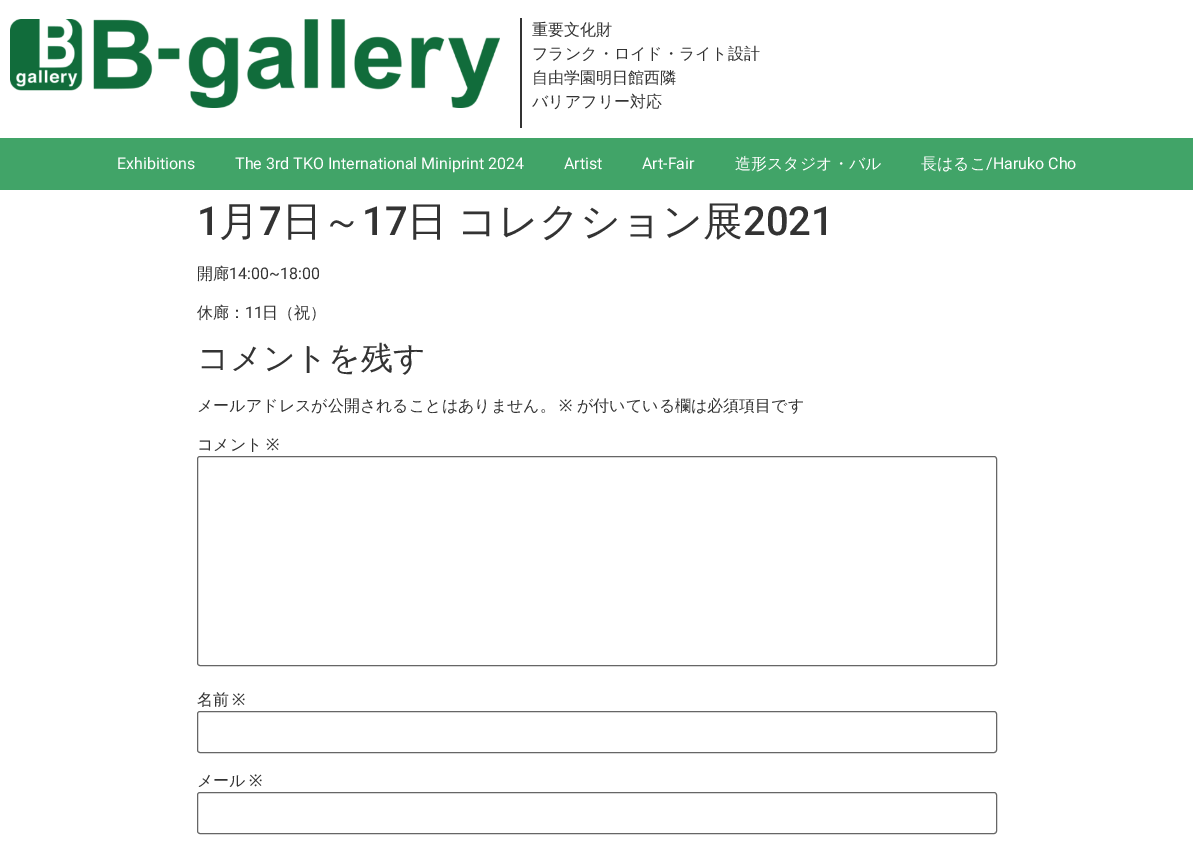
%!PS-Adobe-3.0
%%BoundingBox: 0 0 1193 848
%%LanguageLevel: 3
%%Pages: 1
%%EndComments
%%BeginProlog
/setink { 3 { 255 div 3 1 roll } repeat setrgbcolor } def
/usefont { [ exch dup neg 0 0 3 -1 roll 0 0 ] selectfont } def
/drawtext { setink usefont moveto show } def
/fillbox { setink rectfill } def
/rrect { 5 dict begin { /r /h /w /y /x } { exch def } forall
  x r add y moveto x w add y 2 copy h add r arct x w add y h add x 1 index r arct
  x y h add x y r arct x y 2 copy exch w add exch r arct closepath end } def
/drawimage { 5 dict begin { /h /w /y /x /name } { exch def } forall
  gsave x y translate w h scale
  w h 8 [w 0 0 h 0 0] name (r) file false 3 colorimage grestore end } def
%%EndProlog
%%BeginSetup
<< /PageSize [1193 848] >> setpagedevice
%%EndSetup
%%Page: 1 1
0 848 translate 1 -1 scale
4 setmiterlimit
0 0 1193 848 255 255 255 fillbox
(assets/img1.rgb) 10 19 490 89 drawimage
520 18 2 110 51 51 51 fillbox
(重要文化財) 532 35 /WenQuanYiZenHei-Medium 16 51 51 51 drawtext
(フランク・ロイド・ライト設計) 532 59 /WenQuanYiZenHei-Medium 16 51 51 51 drawtext
(自由学園明日館西隣) 532 83 /WenQuanYiZenHei-Medium 16 51 51 51 drawtext
(バリアフリー対応) 532 107 /WenQuanYiZenHei-Medium 16 51 51 51 drawtext
0 138 1193 52 65 164 104 fillbox
(Exhibitions) 117 169 /Roboto-Regular 16 255 255 255 drawtext
(The 3rd TKO International Miniprint 2024) 235 169 /Roboto-Regular 16 255 255 255 drawtext
(Artist) 564 169 /Roboto-Regular 16 255 255 255 drawtext
(Art-Fair) 642 169 /Roboto-Regular 16 255 255 255 drawtext
(造形スタジオ・バル) 735 169 /WenQuanYiZenHei-Medium 16 255 255 255 drawtext
(長はるこ) 921 169 /WenQuanYiZenHei-Medium 16 255 255 255 drawtext
(/Haruko Cho) 986 169 /Roboto-Regular 16 255 255 255 drawtext
(1) 197 235 /Roboto-Medium 40 51 51 51 drawtext
(月) 219 235 /WenQuanYiZenHei-Medium 40 51 51 51 drawtext
(7) 259 235 /Roboto-Medium 40 51 51 51 drawtext
(日～) 282 235 /WenQuanYiZenHei-Medium 40 51 51 51 drawtext
(17) 362 235 /Roboto-Medium 40 51 51 51 drawtext
/WenQuanYiZenHei-Medium 40 usefont
407 235 moveto -2 0 32 (日 コレクション展) widthshow
(2021) 743 235 /Roboto-Medium 40 51 51 51 drawtext
(開廊) 197 279 /WenQuanYiZenHei-Medium 16 51 51 51 drawtext
(14:00~18:00) 229 279 /Roboto-Regular 16 51 51 51 drawtext
(休廊：) 197 318 /WenQuanYiZenHei-Medium 16 51 51 51 drawtext
(11) 245 318 /Roboto-Regular 16 51 51 51 drawtext
(日（祝）) 262 318 /WenQuanYiZenHei-Medium 16 51 51 51 drawtext
(コメントを残す) 197 369 /WenQuanYiZenHei-Medium 32 51 51 51 drawtext
(メールアドレスが公開されることはありません。) 197 411 /WenQuanYiZenHei-Medium 16 51 51 51 drawtext
(※) 559 411 /NotoSans-Regular 16 51 51 51 drawtext
(が付いている欄は必須項目です) 577 411 /WenQuanYiZenHei-Medium 16 51 51 51 drawtext
(コメント) 197 450 /WenQuanYiZenHei-Medium 16 51 51 51 drawtext
(※) 266 450 /NotoSans-Regular 16 51 51 51 drawtext
102 102 102 setink
197.5 456.5 799 209 2.5 rrect stroke
(名前) 197 705 /WenQuanYiZenHei-Medium 16 51 51 51 drawtext
(※) 232 705 /NotoSans-Regular 16 51 51 51 drawtext
102 102 102 setink
197.5 711.5 799 41 2.5 rrect stroke
(メール) 197 786 /WenQuanYiZenHei-Medium 16 51 51 51 drawtext
(※) 249 786 /NotoSans-Regular 16 51 51 51 drawtext
102 102 102 setink
197.5 792.5 799 41 2.5 rrect stroke
showpage
%%EOF
